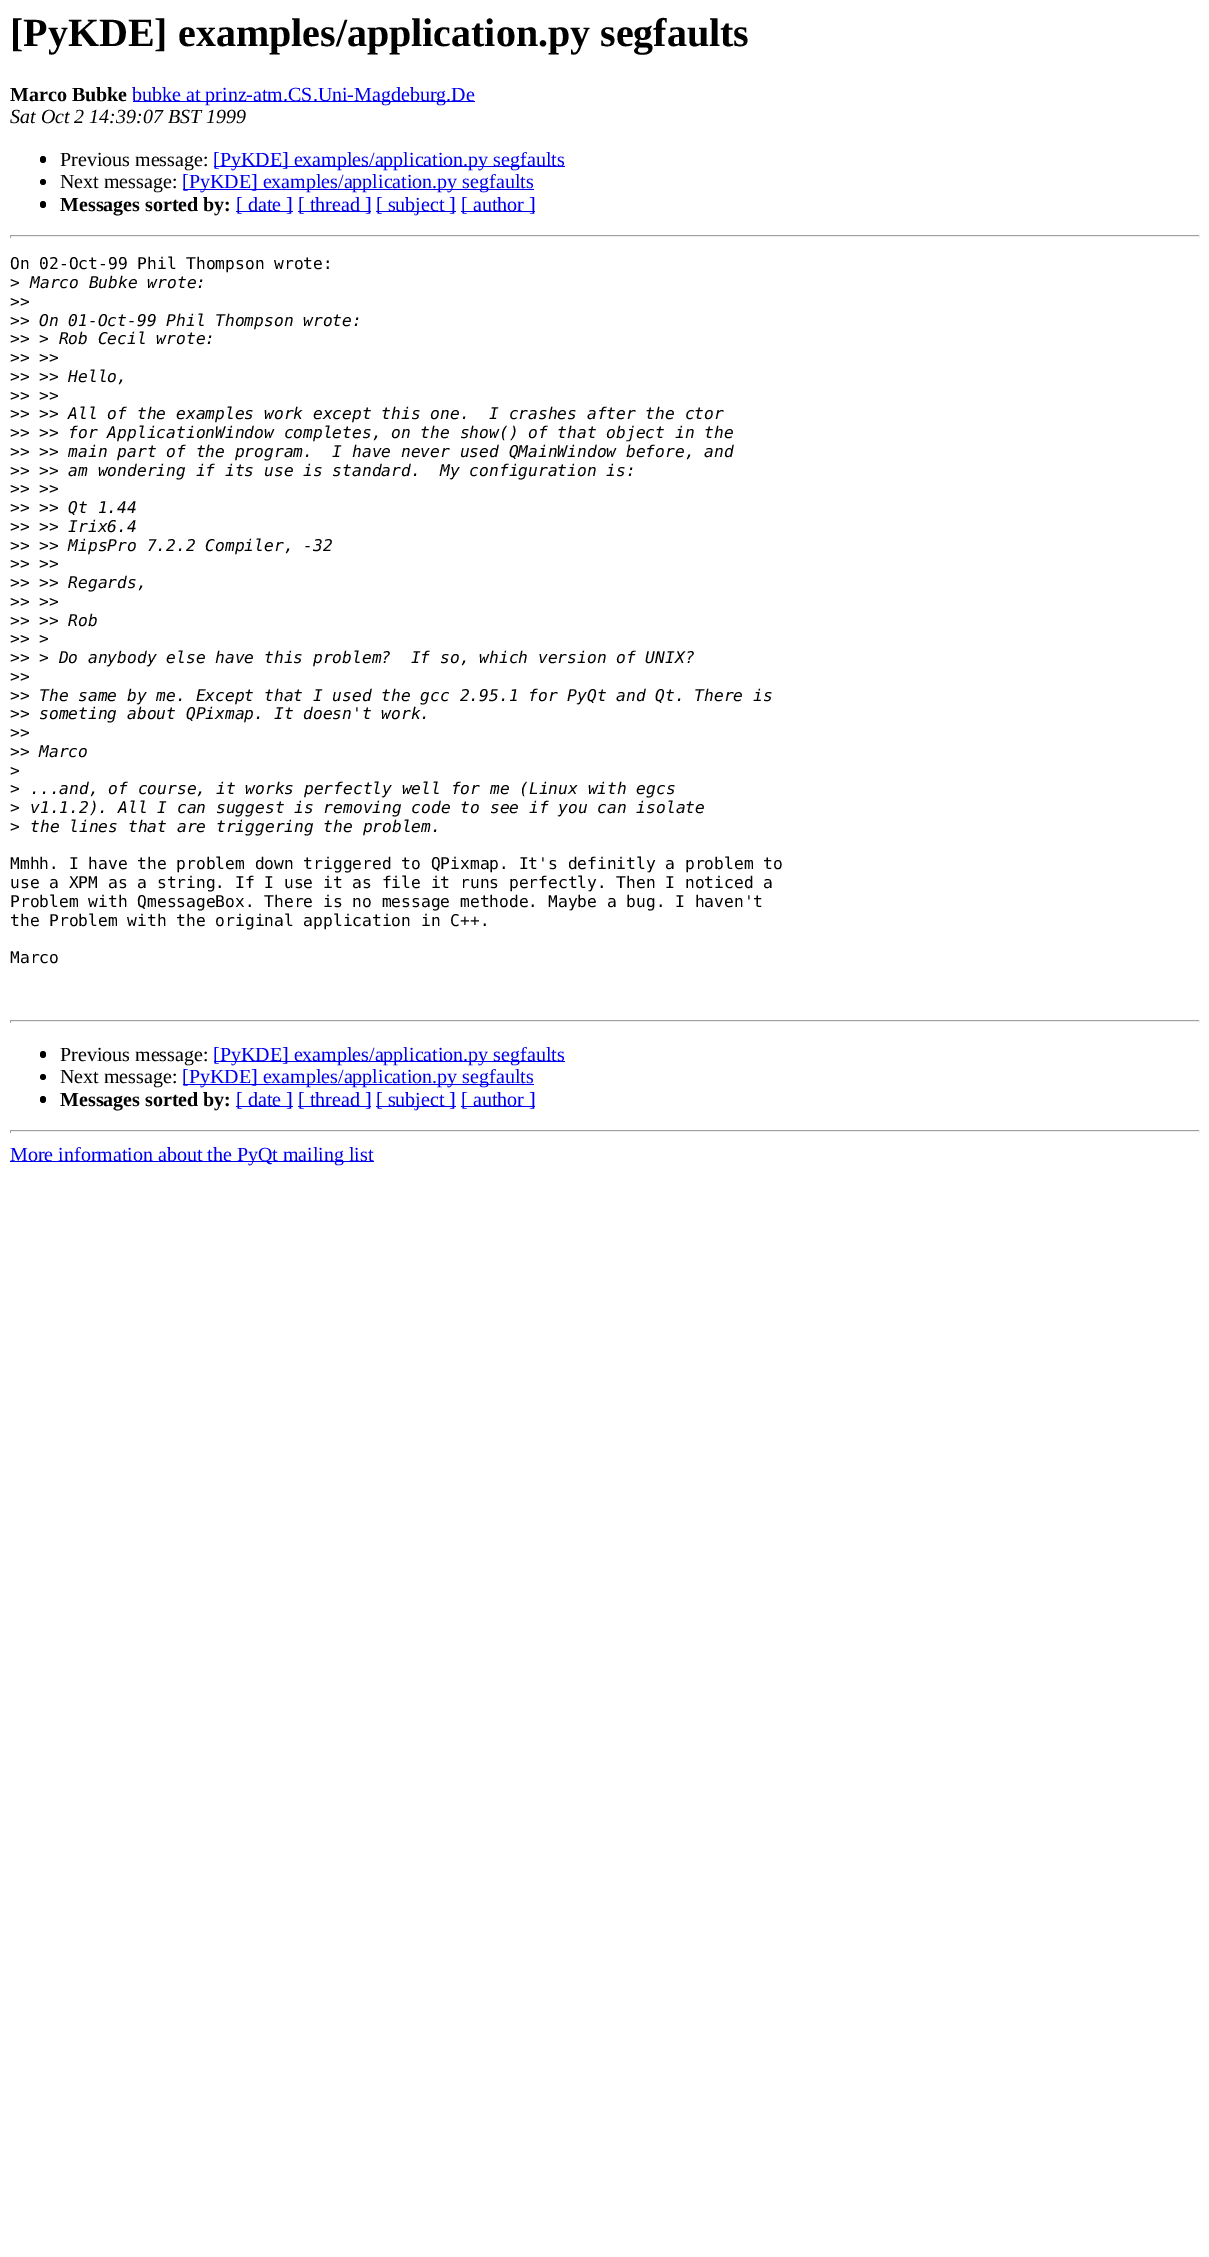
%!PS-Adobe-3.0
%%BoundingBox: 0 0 1209 2257
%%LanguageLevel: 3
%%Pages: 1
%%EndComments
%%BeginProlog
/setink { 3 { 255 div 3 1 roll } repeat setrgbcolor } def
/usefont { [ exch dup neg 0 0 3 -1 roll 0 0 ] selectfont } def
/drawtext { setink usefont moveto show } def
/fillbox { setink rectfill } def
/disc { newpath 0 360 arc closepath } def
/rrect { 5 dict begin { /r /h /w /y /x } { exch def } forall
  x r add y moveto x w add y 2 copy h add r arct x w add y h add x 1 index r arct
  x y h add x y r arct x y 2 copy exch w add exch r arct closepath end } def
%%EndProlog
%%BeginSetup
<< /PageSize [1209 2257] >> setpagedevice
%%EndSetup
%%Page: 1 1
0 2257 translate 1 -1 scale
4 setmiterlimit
0 0 1209 2257 255 255 255 fillbox
([PyKDE] examples/application.py segfaults) 10 46 /LiberationSerif-Bold 40 0 0 0 drawtext
(Marco Bubke) 10 101 /LiberationSerif-Bold 20 0 0 0 drawtext
133 101 342 1 0 0 238 fillbox
(bubke at prinz-atm.CS.Uni-Magdeburg.De) 132 101 /LiberationSerif-Regular 20 0 0 238 drawtext
(Sat Oct 2 14:39:07 BST 1999) 10 123 /LiberationSerif-Italic 20 0 0 0 drawtext
40 156 6 7 3 rrect fill
(Previous message:) 60 166 /LiberationSerif-Regular 20 0 0 0 drawtext
214 166 351 1 0 0 238 fillbox
([PyKDE] examples/application.py segfaults) 213 166 /LiberationSerif-Regular 20 0 0 238 drawtext
0 0 0 setink
43 182 3 disc fill
(Next message:) 60 188 /LiberationSerif-Regular 20 0 0 0 drawtext
183 189 351 1 0 0 238 fillbox
([PyKDE] examples/application.py segfaults) 182 188 /LiberationSerif-Regular 20 0 0 238 drawtext
0 0 0 setink
40 201 6 7 3 rrect fill
(Messages sorted by:) 60 211 /LiberationSerif-Bold 20 0 0 0 drawtext
236 211 57 1 0 0 238 fillbox
([ date ]) 236 211 /LiberationSerif-Regular 20 0 0 238 drawtext
298 211 73 1 0 0 238 fillbox
([ thread ]) 298 211 /LiberationSerif-Regular 20 0 0 238 drawtext
376 211 80 1 0 0 238 fillbox
([ subject ]) 376 211 /LiberationSerif-Regular 20 0 0 238 drawtext
461 211 74 1 0 0 238 fillbox
([ author ]) 461 211 /LiberationSerif-Regular 20 0 0 238 drawtext
10 235 1190 1 159 159 159 fillbox
1199 235 1 3 238 238 238 fillbox
10 236 1190 1 238 238 238 fillbox
10 235 1 3 159 159 159 fillbox
(On 02-Oct-99 Phil Thompson wrote:) 10 269 /DejaVuSansMono-Regular 16.25 0 0 0 drawtext
(>) 10 288 /DejaVuSansMono-Regular 16.25 0 0 0 drawtext
(Marco Bubke wrote:) 30 288 /DejaVuSansMono-Italic 16.25 0 0 0 drawtext
(>>) 10 307 /DejaVuSansMono-Regular 16.25 0 0 0 drawtext
(>>) 10 326 /DejaVuSansMono-Regular 16.25 0 0 0 drawtext
(On 01-Oct-99 Phil Thompson wrote:) 39 326 /DejaVuSansMono-Italic 16.25 0 0 0 drawtext
(>>) 10 344 /DejaVuSansMono-Regular 16.25 0 0 0 drawtext
(> Rob Cecil wrote:) 39 344 /DejaVuSansMono-Italic 16.25 0 0 0 drawtext
(>>) 10 363 /DejaVuSansMono-Regular 16.25 0 0 0 drawtext
(>>) 39 363 /DejaVuSansMono-Italic 16.25 0 0 0 drawtext
(>>) 10 382 /DejaVuSansMono-Regular 16.25 0 0 0 drawtext
(>> Hello,) 39 382 /DejaVuSansMono-Italic 16.25 0 0 0 drawtext
(>>) 10 401 /DejaVuSansMono-Regular 16.25 0 0 0 drawtext
(>>) 39 401 /DejaVuSansMono-Italic 16.25 0 0 0 drawtext
(>>) 10 419 /DejaVuSansMono-Regular 16.25 0 0 0 drawtext
(>> All of the examples work except this one.  I crashes after the ctor) 39 419 /DejaVuSansMono-Italic 16.25 0 0 0 drawtext
(>>) 10 438 /DejaVuSansMono-Regular 16.25 0 0 0 drawtext
(>> for ApplicationWindow completes, on the show\(\) of that object in the) 39 438 /DejaVuSansMono-Italic 16.25 0 0 0 drawtext
(>>) 10 457 /DejaVuSansMono-Regular 16.25 0 0 0 drawtext
(>> main part of the program.  I have never used QMainWindow before, and) 39 457 /DejaVuSansMono-Italic 16.25 0 0 0 drawtext
(>>) 10 476 /DejaVuSansMono-Regular 16.25 0 0 0 drawtext
(>> am wondering if its use is standard.  My configuration is:) 39 476 /DejaVuSansMono-Italic 16.25 0 0 0 drawtext
(>>) 10 494 /DejaVuSansMono-Regular 16.25 0 0 0 drawtext
(>>) 39 494 /DejaVuSansMono-Italic 16.25 0 0 0 drawtext
(>>) 10 513 /DejaVuSansMono-Regular 16.25 0 0 0 drawtext
(>> Qt 1.44) 39 513 /DejaVuSansMono-Italic 16.25 0 0 0 drawtext
(>>) 10 532 /DejaVuSansMono-Regular 16.25 0 0 0 drawtext
(>> Irix6.4) 39 532 /DejaVuSansMono-Italic 16.25 0 0 0 drawtext
(>>) 10 551 /DejaVuSansMono-Regular 16.25 0 0 0 drawtext
(>> MipsPro 7.2.2 Compiler, -32) 39 551 /DejaVuSansMono-Italic 16.25 0 0 0 drawtext
(>>) 10 569 /DejaVuSansMono-Regular 16.25 0 0 0 drawtext
(>>) 39 569 /DejaVuSansMono-Italic 16.25 0 0 0 drawtext
(>>) 10 588 /DejaVuSansMono-Regular 16.25 0 0 0 drawtext
(>> Regards,) 39 588 /DejaVuSansMono-Italic 16.25 0 0 0 drawtext
(>>) 10 607 /DejaVuSansMono-Regular 16.25 0 0 0 drawtext
(>>) 39 607 /DejaVuSansMono-Italic 16.25 0 0 0 drawtext
(>>) 10 626 /DejaVuSansMono-Regular 16.25 0 0 0 drawtext
(>> Rob) 39 626 /DejaVuSansMono-Italic 16.25 0 0 0 drawtext
(>>) 10 644 /DejaVuSansMono-Regular 16.25 0 0 0 drawtext
(>) 39 644 /DejaVuSansMono-Italic 16.25 0 0 0 drawtext
(>>) 10 663 /DejaVuSansMono-Regular 16.25 0 0 0 drawtext
(> Do anybody else have this problem?  If so, which version of UNIX?) 39 663 /DejaVuSansMono-Italic 16.25 0 0 0 drawtext
(>>) 10 682 /DejaVuSansMono-Regular 16.25 0 0 0 drawtext
(>>) 10 701 /DejaVuSansMono-Regular 16.25 0 0 0 drawtext
(The same by me. Except that I used the gcc 2.95.1 for PyQt and Qt. There is) 39 701 /DejaVuSansMono-Italic 16.25 0 0 0 drawtext
(>>) 10 719 /DejaVuSansMono-Regular 16.25 0 0 0 drawtext
(someting about QPixmap. It doesn't work.) 39 719 /DejaVuSansMono-Italic 16.25 0 0 0 drawtext
(>>) 10 738 /DejaVuSansMono-Regular 16.25 0 0 0 drawtext
(>>) 10 757 /DejaVuSansMono-Regular 16.25 0 0 0 drawtext
(Marco) 39 757 /DejaVuSansMono-Italic 16.25 0 0 0 drawtext
(>) 10 776 /DejaVuSansMono-Regular 16.25 0 0 0 drawtext
(>) 10 794 /DejaVuSansMono-Regular 16.25 0 0 0 drawtext
(...and, of course, it works perfectly well for me \(Linux with egcs) 30 794 /DejaVuSansMono-Italic 16.25 0 0 0 drawtext
(>) 10 813 /DejaVuSansMono-Regular 16.25 0 0 0 drawtext
(v1.1.2\). All I can suggest is removing code to see if you can isolate) 30 813 /DejaVuSansMono-Italic 16.25 0 0 0 drawtext
(>) 10 832 /DejaVuSansMono-Regular 16.25 0 0 0 drawtext
(the lines that are triggering the problem.) 30 832 /DejaVuSansMono-Italic 16.25 0 0 0 drawtext
(Mmhh. I have the problem down triggered to QPixmap. It's definitly a problem to) 10 869 /DejaVuSansMono-Regular 16.25 0 0 0 drawtext
(use a XPM as a string. If I use it as file it runs perfectly. Then I noticed a) 10 888 /DejaVuSansMono-Regular 16.25 0 0 0 drawtext
(Problem with QmessageBox. There is no message methode. Maybe a bug. I haven't) 10 907 /DejaVuSansMono-Regular 16.25 0 0 0 drawtext
(the Problem with the original application in C++.) 10 926 /DejaVuSansMono-Regular 16.25 0 0 0 drawtext
(Marco) 10 963 /DejaVuSansMono-Regular 16.25 0 0 0 drawtext
10 1020 1190 1 159 159 159 fillbox
1199 1020 1 3 238 238 238 fillbox
10 1021 1190 1 238 238 238 fillbox
10 1020 1 3 159 159 159 fillbox
0 0 0 setink
40 1051 6 7 3 rrect fill
(Previous message:) 60 1061 /LiberationSerif-Regular 20 0 0 0 drawtext
214 1061 351 1 0 0 238 fillbox
([PyKDE] examples/application.py segfaults) 213 1061 /LiberationSerif-Regular 20 0 0 238 drawtext
0 0 0 setink
43 1077 3 disc fill
(Next message:) 60 1083 /LiberationSerif-Regular 20 0 0 0 drawtext
183 1084 351 1 0 0 238 fillbox
([PyKDE] examples/application.py segfaults) 182 1083 /LiberationSerif-Regular 20 0 0 238 drawtext
0 0 0 setink
40 1096 6 7 3 rrect fill
(Messages sorted by:) 60 1106 /LiberationSerif-Bold 20 0 0 0 drawtext
236 1106 57 1 0 0 238 fillbox
([ date ]) 236 1106 /LiberationSerif-Regular 20 0 0 238 drawtext
298 1106 73 1 0 0 238 fillbox
([ thread ]) 298 1106 /LiberationSerif-Regular 20 0 0 238 drawtext
376 1106 80 1 0 0 238 fillbox
([ subject ]) 376 1106 /LiberationSerif-Regular 20 0 0 238 drawtext
461 1106 74 1 0 0 238 fillbox
([ author ]) 461 1106 /LiberationSerif-Regular 20 0 0 238 drawtext
10 1130 1190 1 159 159 159 fillbox
1199 1130 1 3 238 238 238 fillbox
10 1131 1190 1 238 238 238 fillbox
10 1130 1 3 159 159 159 fillbox
10 1161 364 1 0 0 238 fillbox
(More information about the PyQt mailing list) 10 1161 /LiberationSerif-Regular 20 0 0 238 drawtext
showpage
%%EOF
